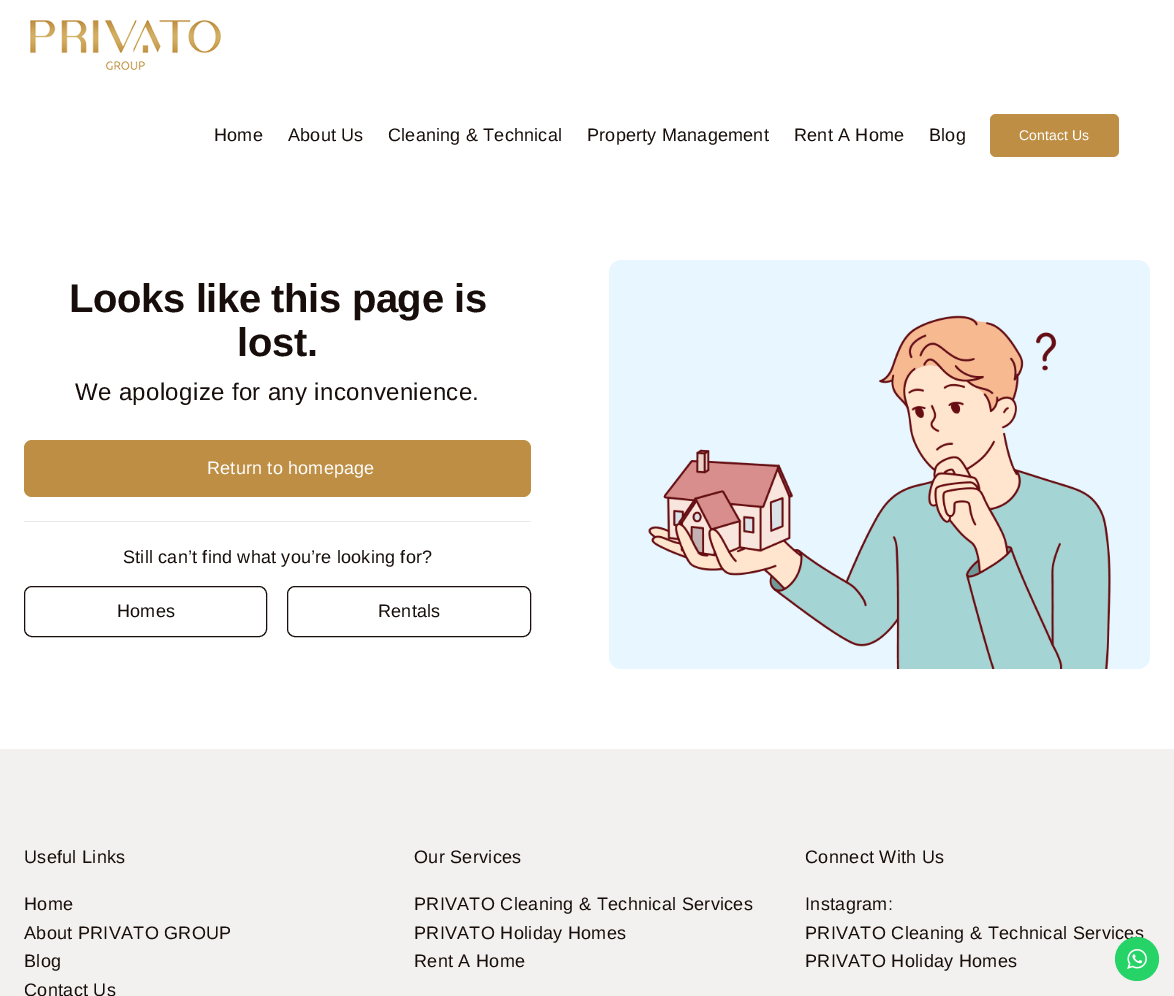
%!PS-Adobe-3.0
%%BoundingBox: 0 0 1174 996
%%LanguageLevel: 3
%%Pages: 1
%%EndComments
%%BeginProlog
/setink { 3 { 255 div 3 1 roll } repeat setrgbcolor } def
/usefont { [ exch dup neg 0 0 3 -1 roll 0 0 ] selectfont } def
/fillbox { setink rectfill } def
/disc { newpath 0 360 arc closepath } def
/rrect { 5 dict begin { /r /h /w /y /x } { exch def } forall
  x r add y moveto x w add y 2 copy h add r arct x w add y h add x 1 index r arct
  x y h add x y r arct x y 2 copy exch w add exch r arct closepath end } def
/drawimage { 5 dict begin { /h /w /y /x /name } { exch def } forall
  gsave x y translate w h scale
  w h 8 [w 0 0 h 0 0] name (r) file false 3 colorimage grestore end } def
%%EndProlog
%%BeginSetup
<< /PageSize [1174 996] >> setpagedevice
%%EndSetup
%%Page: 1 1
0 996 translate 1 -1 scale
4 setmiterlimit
0 0 1174 996 255 255 255 fillbox
(assets/img1.rgb) 30 20 191 50 drawimage
/LiberationSans-Regular 18 usefont
23 14 11 setink
214 141 moveto 0.2 0 (Home) ashow
288 141 moveto 0.2 0 (About Us) ashow
388 141 moveto 0.2 0 (Cleaning & Technical) ashow
587 141 moveto 0.2 0 (Property Management) ashow
794 141 moveto 0.2 0 (Rent A Home) ashow
929 141 moveto 0.2 0 (Blog) ashow
190 142 68 setink
990 114 129 43 6 rrect fill
/LiberationSans-Regular 14 usefont
255 255 255 setink
1019 140 moveto 0.1 0 (Contact Us) ashow
/LiberationSans-Bold 40 usefont
23 14 11 setink
69 312 moveto -0.4 0 (Looks like this page is) ashow
237 356 moveto -0.4 0 (lost.) ashow
/LiberationSans-Regular 24 usefont
75 400 moveto 0.35 0 (We apologize for any inconvenience.) ashow
190 142 68 setink
24 440 507 57 8 rrect fill
/LiberationSans-Regular 18 usefont
255 255 255 setink
207 474 moveto 0.2 0 (Return to homepage) ashow
24 521 507 1 234 234 234 fillbox
23 14 11 setink
123 563 moveto 0.2 0 (Still can’t find what you’re looking for?) ashow
24.5 586.5 242 50 7.5 rrect stroke
117 617 moveto 0.2 0 (Homes) ashow
287.5 586.5 243 50 7.5 rrect stroke
378 617 moveto 0.2 0 (Rentals) ashow
(assets/img2.rgb) 609 260 541 409 drawimage
0 749 1174 247 243 241 239 fillbox
23 14 11 setink
24 863 moveto 0.3 0 (Useful Links) ashow
24 910 moveto 0.3 0 (Home) ashow
24 939 moveto 0.3 0 (About PRIVATO GROUP) ashow
24 967 moveto 0.3 0 (Blog) ashow
24 996 moveto 0.3 0 (Contact Us) ashow
414 863 moveto 0.3 0 (Our Services) ashow
414 910 moveto 0.3 0 (PRIVATO Cleaning & Technical Services) ashow
414 939 moveto 0.3 0 (PRIVATO Holiday Homes) ashow
414 967 moveto 0.3 0 (Rent A Home) ashow
805 863 moveto 0.3 0 (Connect With Us) ashow
805 910 moveto 0.3 0 (Instagram:) ashow
805 939 moveto 0.3 0 (PRIVATO Cleaning & Technical Services) ashow
805 967 moveto 0.3 0 (PRIVATO Holiday Homes) ashow
37 211 102 setink
1137 959 22 disc fill
(assets/img3.rgb) 1127 949 20 20 drawimage
showpage
%%EOF
